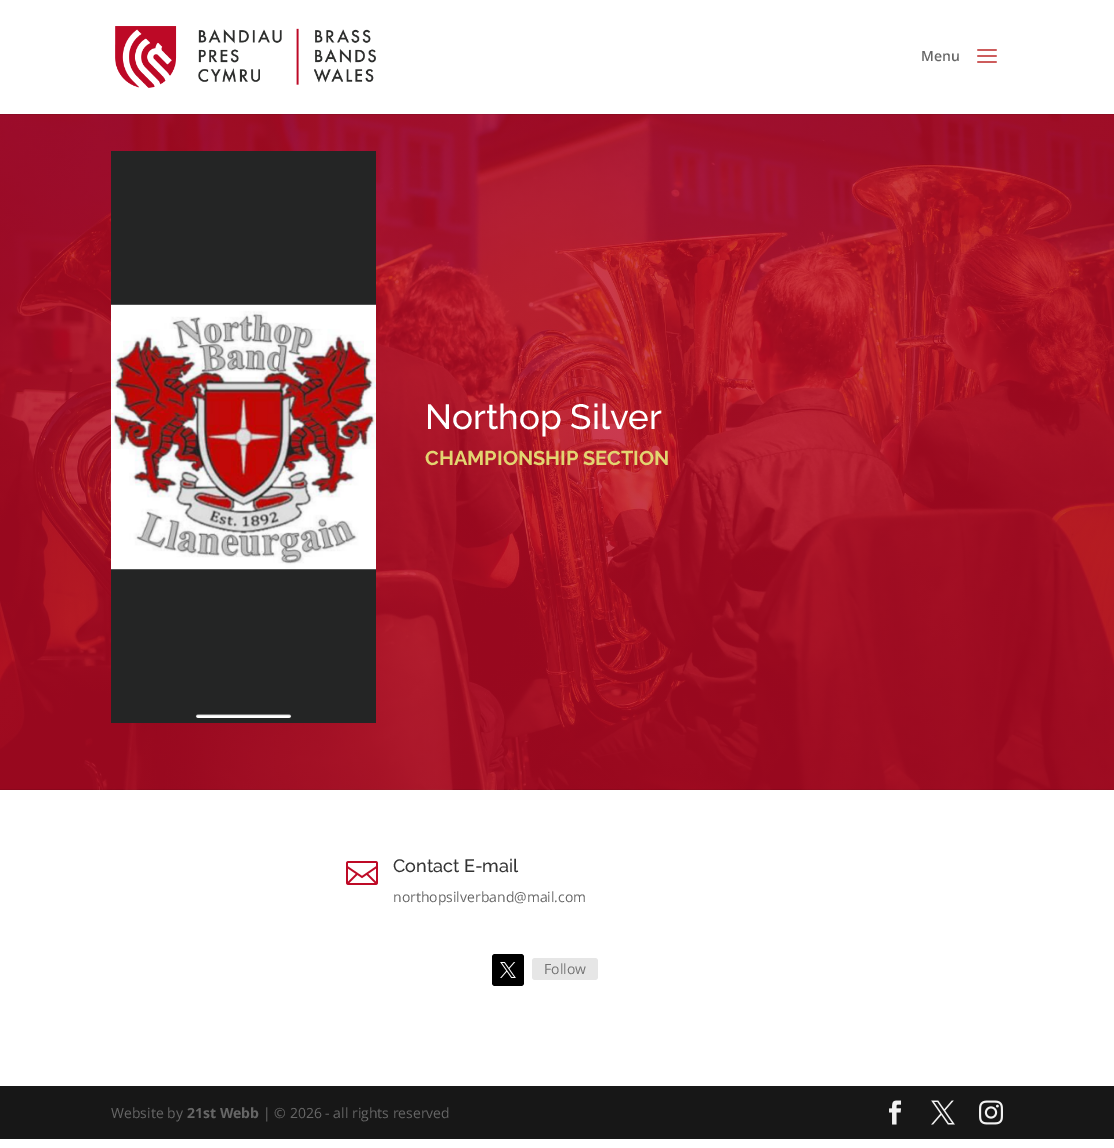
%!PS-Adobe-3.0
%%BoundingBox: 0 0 1114 1148
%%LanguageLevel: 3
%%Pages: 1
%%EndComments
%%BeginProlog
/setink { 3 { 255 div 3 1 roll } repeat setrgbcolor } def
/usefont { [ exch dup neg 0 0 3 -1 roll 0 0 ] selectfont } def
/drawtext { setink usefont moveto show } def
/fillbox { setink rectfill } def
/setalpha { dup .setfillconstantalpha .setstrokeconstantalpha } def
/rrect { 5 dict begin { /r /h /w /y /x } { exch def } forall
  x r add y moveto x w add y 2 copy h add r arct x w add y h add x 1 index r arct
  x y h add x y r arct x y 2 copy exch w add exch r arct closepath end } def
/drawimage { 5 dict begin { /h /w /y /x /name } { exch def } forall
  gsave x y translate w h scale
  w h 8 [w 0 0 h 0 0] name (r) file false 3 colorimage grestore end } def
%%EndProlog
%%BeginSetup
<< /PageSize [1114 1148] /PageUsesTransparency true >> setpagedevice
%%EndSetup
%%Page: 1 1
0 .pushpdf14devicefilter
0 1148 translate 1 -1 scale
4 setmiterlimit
0 0 1114 1148 255 255 255 fillbox
(assets/img3.rgb) 0 114 1114 676 drawimage
0.1 setalpha
0 114 1114 1 0 0 0 fillbox
1 setalpha
(assets/img1.rgb) 115 26 261 62 drawimage
(Menu) 921 61 /OpenSans-SemiBold 14 102 102 102 drawtext
(assets/img2.rgb) 977 49 20 14 drawimage
(assets/img4.rgb) 111 151 265 572 drawimage
(Northop Silver) 425 429 /Raleway-Thin 35 255 255 255 drawtext
(CHAMPIONSHIP SECTION) 425 465 /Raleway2-Thin 20 227 213 113 drawtext
(assets/img5.rgb) 346 861 32 24 drawimage
(Contact E-mail) 393 872 /Raleway-Thin 18 51 51 51 drawtext
(northopsilverband@mail.com) 393 902 /OpenSans-Regular 14 102 102 102 drawtext
0 0 0 setink
492 954 32 32 3 rrect fill
(assets/img6.rgb) 500 962 16 16 drawimage
230 230 230 setink
532 958 66 22 3 rrect fill
(Follow) 544 974 /OpenSans-Regular 14 115 115 115 drawtext
0 1086 1114 53 23 23 23 fillbox
(Website by) 111 1118 /OpenSans-Regular 14 102 102 102 drawtext
(21st Webb) 187 1118 /OpenSans-Bold 14 102 102 102 drawtext
(| © 2026 - all rights reserved) 263 1118 /OpenSans-Regular 14 102 102 102 drawtext
(assets/img7.rgb) 889 1100 13 25 drawimage
(assets/img8.rgb) 931 1100 24 25 drawimage
(assets/img9.rgb) 979 1100 24 25 drawimage
.poppdf14devicefilter showpage
%%EOF
